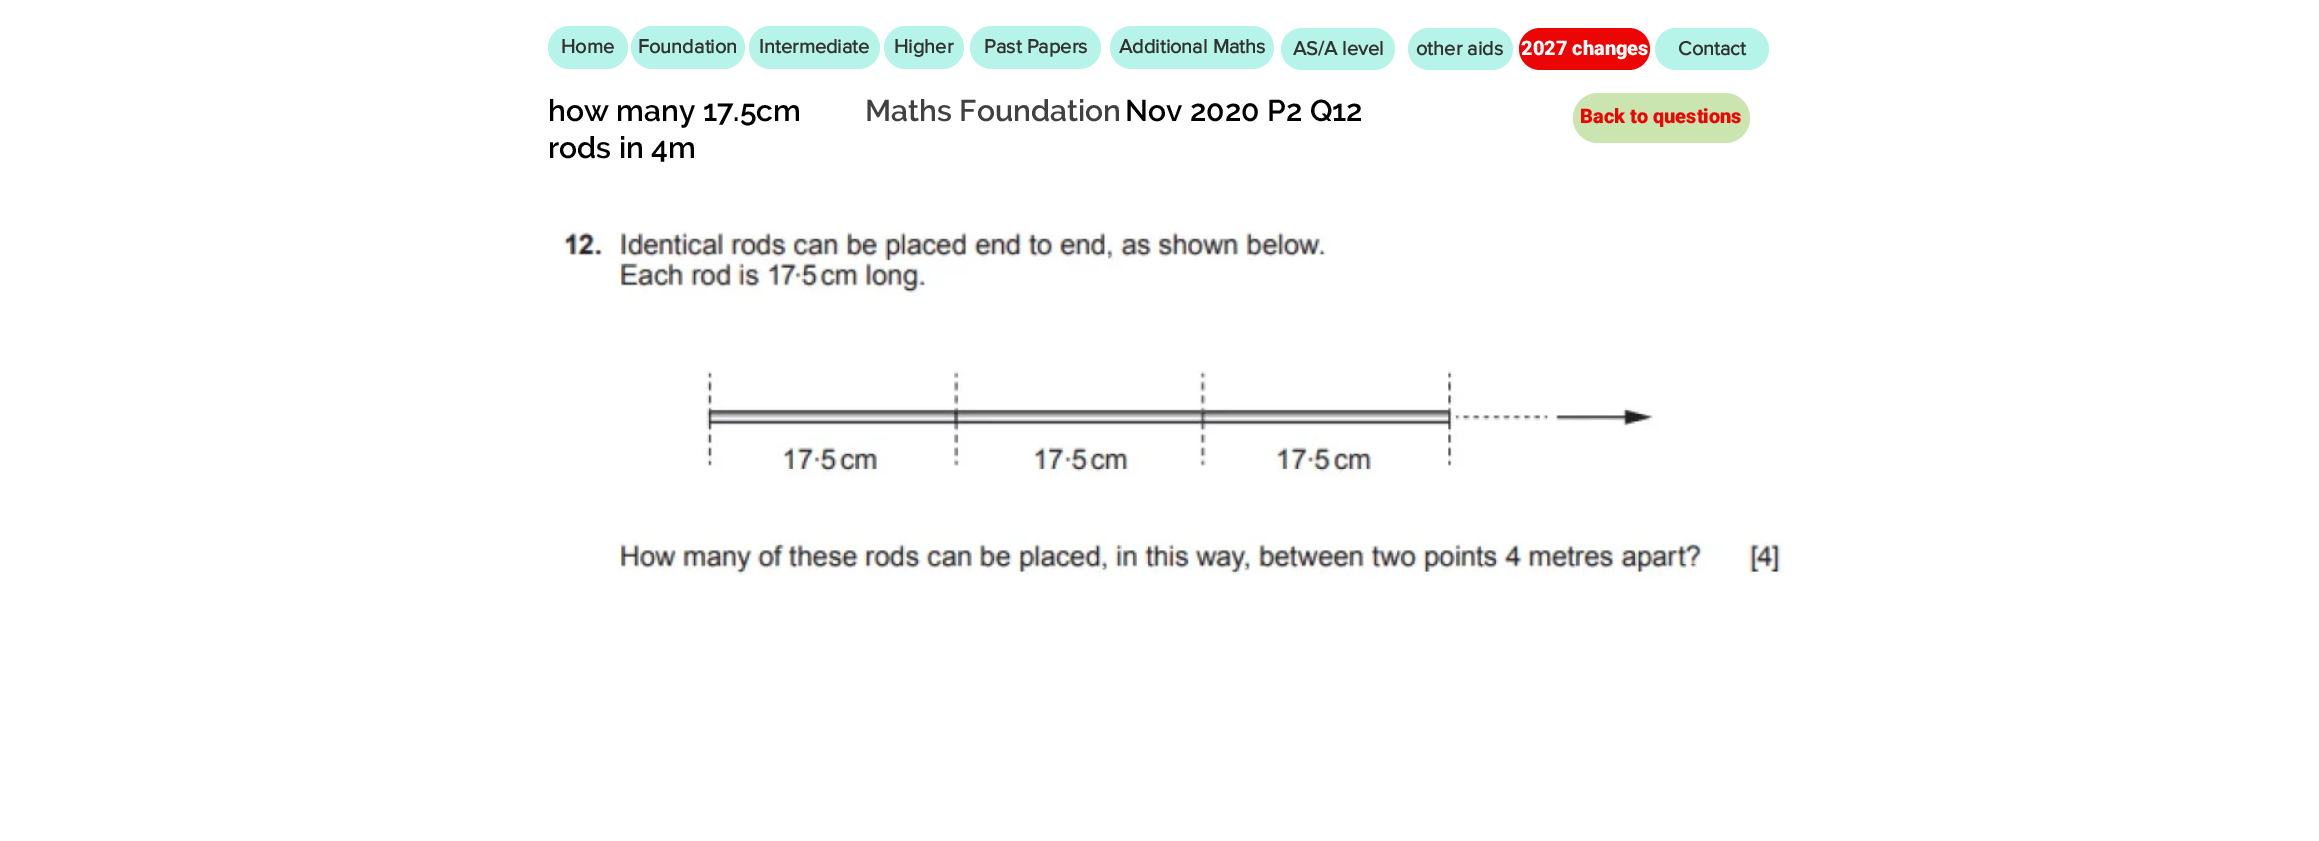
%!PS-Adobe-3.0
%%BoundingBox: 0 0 2319 841
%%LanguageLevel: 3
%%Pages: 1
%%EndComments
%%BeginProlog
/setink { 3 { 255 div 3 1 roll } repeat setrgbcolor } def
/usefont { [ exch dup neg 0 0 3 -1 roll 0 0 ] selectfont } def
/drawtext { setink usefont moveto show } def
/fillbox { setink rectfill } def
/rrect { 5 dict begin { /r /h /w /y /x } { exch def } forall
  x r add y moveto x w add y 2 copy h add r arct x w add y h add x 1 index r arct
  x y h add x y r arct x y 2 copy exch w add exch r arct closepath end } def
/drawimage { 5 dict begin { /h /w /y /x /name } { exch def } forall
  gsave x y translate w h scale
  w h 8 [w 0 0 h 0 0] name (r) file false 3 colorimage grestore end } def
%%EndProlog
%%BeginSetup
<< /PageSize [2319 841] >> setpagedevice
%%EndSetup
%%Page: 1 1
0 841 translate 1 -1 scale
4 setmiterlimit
0 0 2319 841 255 255 255 fillbox
182 243 232 setink
548 26 80 43 21.5 rrect fill
(Home) 561 53 /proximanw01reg-Bold 20 50 50 50 drawtext
182 243 232 setink
631 26 114 43 21.5 rrect fill
(Foundation) 638 53 /proximanw01reg-Bold 20 50 50 50 drawtext
182 243 232 setink
749 26 131 43 21.5 rrect fill
(Intermediate) 759 53 /proximanw01reg-Bold 20 50 50 50 drawtext
182 243 232 setink
884 26 80 43 21.5 rrect fill
(Higher) 894 53 /proximanw01reg-Bold 20 50 50 50 drawtext
182 243 232 setink
970 26 131 43 21.5 rrect fill
(Past Papers) 984 53 /proximanw01reg-Bold 20 50 50 50 drawtext
182 243 232 setink
1110 26 164 43 21.5 rrect fill
(Additional Maths) 1119 53 /proximanw01reg-Bold 20 50 50 50 drawtext
182 243 232 setink
1281 28 114 42 21 rrect fill
(AS/A level) 1293 55 /proximanw01reg-Bold 20 50 50 50 drawtext
182 243 232 setink
1408 28 105 42 21 rrect fill
(other aids) 1416 55 /proximanw01reg-Bold 20 50 50 50 drawtext
235 5 5 setink
1519 28 131 42 21 rrect fill
(2027 changes) 1521 55 /Roboto-Black 20 255 255 255 drawtext
182 243 232 setink
1655 28 114 42 21 rrect fill
(Contact) 1678 55 /proximanw01reg-Bold 20 50 50 50 drawtext
(how many 17.5cm) 548 121 /Raleway-SemiBold 30 0 0 0 drawtext
(rods in 4m) 548 158 /Raleway-SemiBold 30 0 0 0 drawtext
(Maths Foundation) 865 121 /Raleway-SemiBold 30 65 65 65 drawtext
(Nov 2020 P2 Q12) 1125 121 /Raleway-SemiBold 30 0 0 0 drawtext
202 229 175 setink
1573 93 177 50 25 rrect fill
(Back to questions) 1580 123 /Roboto-Black 20 235 5 5 drawtext
(assets/img1.rgb) 561 230 1225 348 drawimage
showpage
%%EOF
